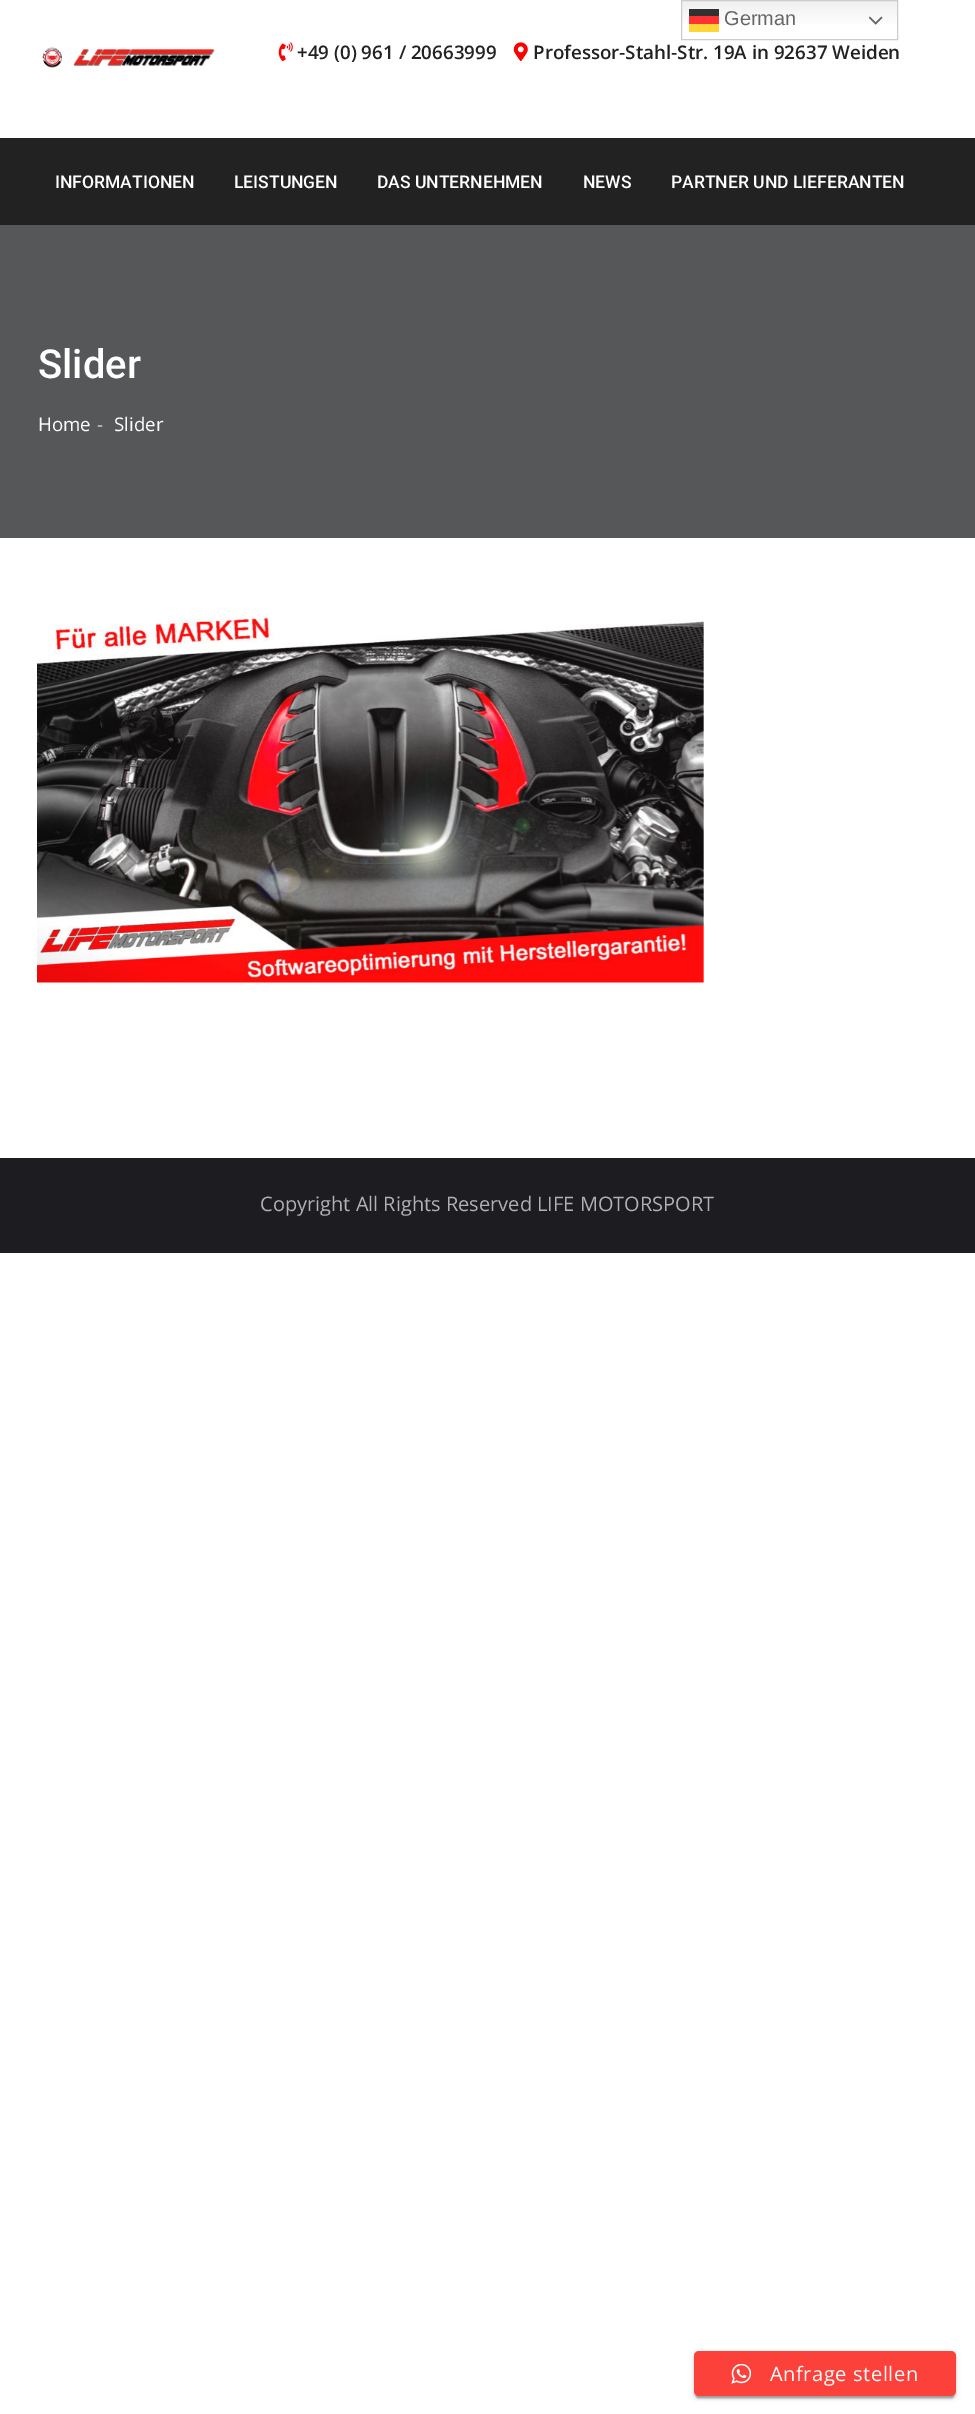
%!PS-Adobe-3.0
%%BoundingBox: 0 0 975 2414
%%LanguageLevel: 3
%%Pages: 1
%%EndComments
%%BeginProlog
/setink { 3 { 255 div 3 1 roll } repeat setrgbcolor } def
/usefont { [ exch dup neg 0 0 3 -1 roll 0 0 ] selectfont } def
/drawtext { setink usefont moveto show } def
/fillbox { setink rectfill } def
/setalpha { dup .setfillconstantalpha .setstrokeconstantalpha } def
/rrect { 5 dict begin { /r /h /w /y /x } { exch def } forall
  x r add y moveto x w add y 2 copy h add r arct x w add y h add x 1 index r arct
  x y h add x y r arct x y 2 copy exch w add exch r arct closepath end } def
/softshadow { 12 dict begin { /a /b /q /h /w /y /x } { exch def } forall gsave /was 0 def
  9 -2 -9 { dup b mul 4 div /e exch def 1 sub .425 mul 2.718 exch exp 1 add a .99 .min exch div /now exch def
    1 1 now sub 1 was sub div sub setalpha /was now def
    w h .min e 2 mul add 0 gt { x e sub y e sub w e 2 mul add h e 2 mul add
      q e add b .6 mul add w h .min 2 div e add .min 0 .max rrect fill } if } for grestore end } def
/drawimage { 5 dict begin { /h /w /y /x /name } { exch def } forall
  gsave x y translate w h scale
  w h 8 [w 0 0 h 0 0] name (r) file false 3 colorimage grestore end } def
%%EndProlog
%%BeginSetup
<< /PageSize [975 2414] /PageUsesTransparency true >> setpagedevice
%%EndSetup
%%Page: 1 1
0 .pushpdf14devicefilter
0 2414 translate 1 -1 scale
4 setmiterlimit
0 0 975 2414 255 255 255 fillbox
gsave 682 1 moveto 897 1 lineto 897 24 lineto 682 24 lineto closepath clip newpath
<< /ShadingType 2 /ColorSpace /DeviceRGB /Coords [789 0 789 40] /Extend [true true] /Function << /FunctionType 3 /Domain [0 1] /Functions [<< /FunctionType 2 /Domain [0 1] /C0 [0.937 0.937 0.937] /C1 [1 1 1] /N 1 >> << /FunctionType 2 /Domain [0 1] /C0 [1 1 1] /C1 [1 1 1] /N 1 >>] /Bounds [0.7] /Encode [0 1 0 1] >> >> shfill grestore
gsave 689 16 moveto 719 16 lineto 719 24 lineto 689 24 lineto closepath clip newpath
<< /ShadingType 2 /ColorSpace /DeviceRGB /Coords [789 0 789 40] /Extend [true true] /Function << /FunctionType 3 /Domain [0 1] /Functions [<< /FunctionType 2 /Domain [0 1] /C0 [0.988 0.188 0.188] /C1 [1 0.2 0.2] /N 1 >> << /FunctionType 2 /Domain [0 1] /C0 [1 0.2 0.2] /C1 [1 0.2 0.2] /N 1 >>] /Bounds [0.7] /Encode [0 1 0 1] >> >> shfill grestore
gsave 689 9 moveto 719 9 lineto 719 16 lineto 689 16 lineto closepath clip newpath
<< /ShadingType 2 /ColorSpace /DeviceRGB /Coords [789 0 789 40] /Extend [true true] /Function << /FunctionType 3 /Domain [0 1] /Functions [<< /FunctionType 2 /Domain [0 1] /C0 [0.188 0.188 0.188] /C1 [0.2 0.2 0.2] /N 1 >> << /FunctionType 2 /Domain [0 1] /C0 [0.2 0.2 0.2] /C1 [0.2 0.2 0.2] /N 1 >>] /Bounds [0.7] /Encode [0 1 0 1] >> >> shfill grestore
204 204 204 setink
681.5 0.5 216 39 rectstroke
(German) 724 25 /LiberationSans-Regular 20 102 102 102 drawtext
(assets/img1.rgb) 869 16 14 9 drawimage
689 24 30 8 255 214 51 fillbox
(assets/img2.rgb) 42 47 173 21 drawimage
(assets/img3.rgb) 278 42 15 20 drawimage
(+49 \(0\) 961 / 20663999) 297 59 /OpenSans-SemiBold 18.75 34 34 34 drawtext
(assets/img4.rgb) 513 42 15 20 drawimage
(Professor-Stahl-Str. 19A in 92637 Weiden) 533 59 /OpenSans-SemiBold 18.75 34 34 34 drawtext
0 138 975 87 34 34 34 fillbox
(INFORMATIONEN) 55 188 /Roboto-Medium 17.5 255 255 255 drawtext
(LEISTUNGEN) 234 188 /Roboto-Medium 17.5 255 255 255 drawtext
(DAS UNTERNEHMEN) 377 188 /Roboto-Medium 17.5 255 255 255 drawtext
(NEWS) 583 188 /Roboto-Medium 17.5 255 255 255 drawtext
(PARTNER UND LIEFERANTEN) 671 188 /Roboto-Medium 17.5 255 255 255 drawtext
0 225 975 313 86 87 89 fillbox
(Slider) 38 378 /Roboto-Medium 40 255 255 255 drawtext
(Home) 38 431 /OpenSans-Regular 18.75 255 255 255 drawtext
(-) 97 431 /OpenSans-Regular 18.75 204 204 204 drawtext
(Slider) 114 431 /OpenSans-Regular 18.75 255 255 255 drawtext
(assets/img5.rgb) 37 615 667 368 drawimage
0 1158 975 95 28 28 33 fillbox
(Copyright All Rights Reserved LIFE MOTORSPORT) 260 1211 /OpenSans-Regular 20 177 177 177 drawtext
0 0 0 setink
696 2358 258 40 2.5 0.5 0.2 softshadow
694 2353 262 45 5 3 0.12 softshadow
694 2354 262 45 5 1 0.14 softshadow
252 64 58 setink
694 2351 262 45 5 rrect fill
(assets/img6.rgb) 731 2364 20 20 drawimage
255 255 255 setink
770 2381 moveto 0.6 0 (Anfrage stellen) ashow
.poppdf14devicefilter showpage
%%EOF
